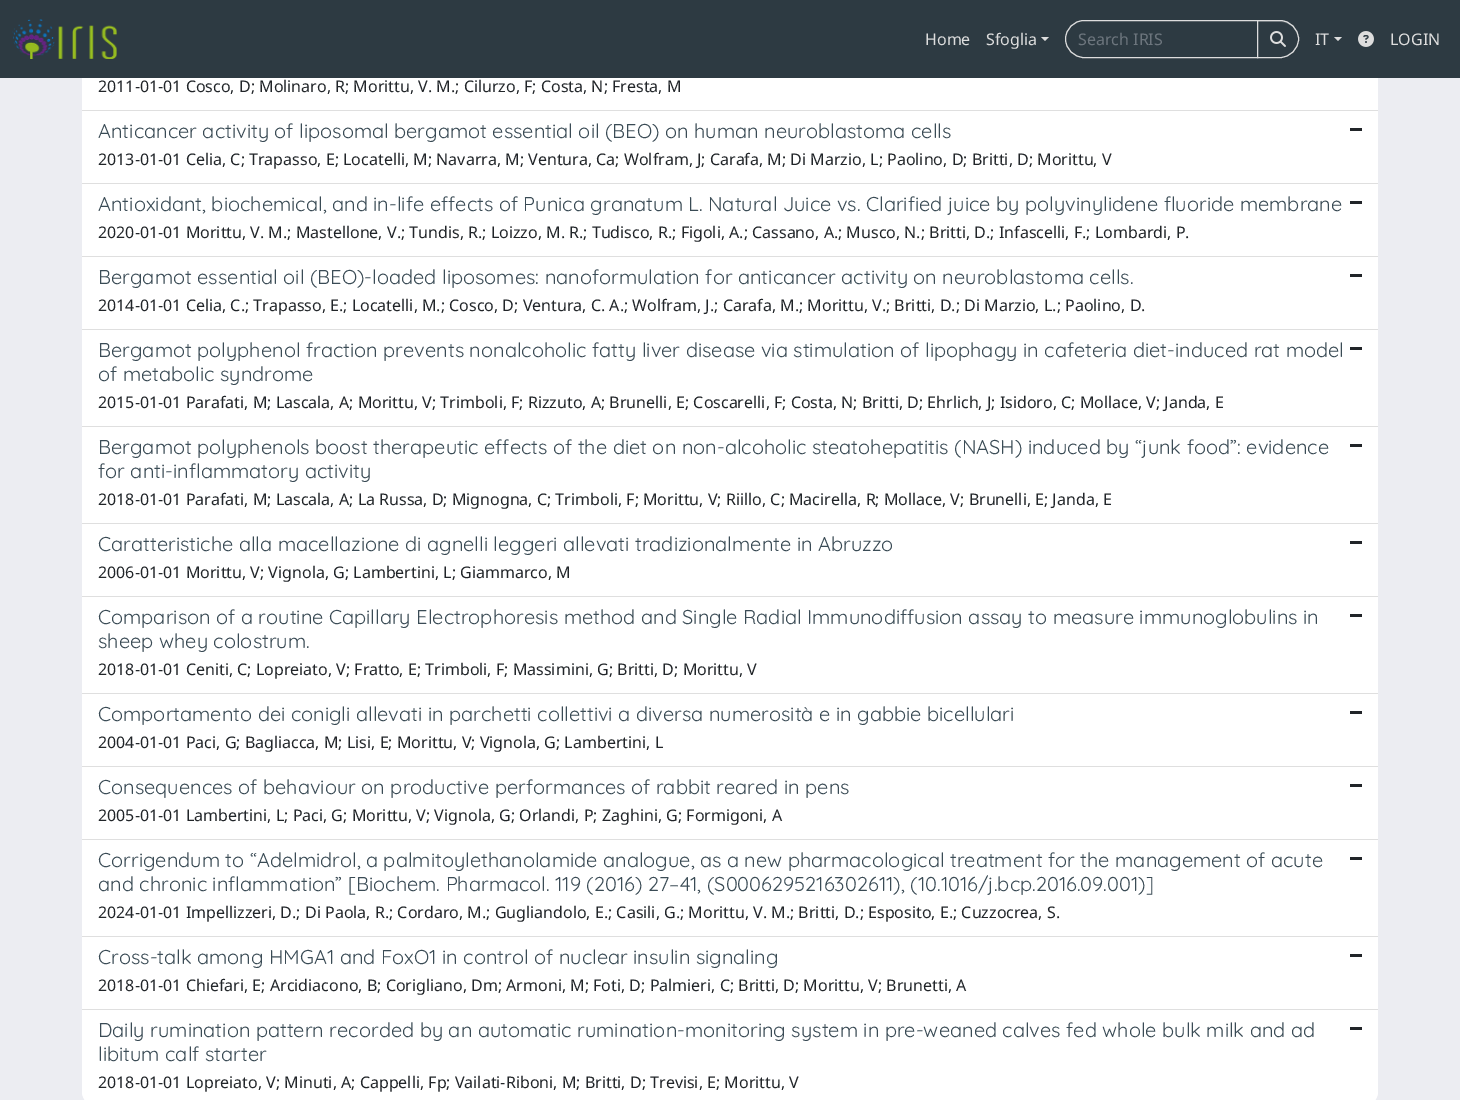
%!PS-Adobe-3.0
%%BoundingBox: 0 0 1460 1100
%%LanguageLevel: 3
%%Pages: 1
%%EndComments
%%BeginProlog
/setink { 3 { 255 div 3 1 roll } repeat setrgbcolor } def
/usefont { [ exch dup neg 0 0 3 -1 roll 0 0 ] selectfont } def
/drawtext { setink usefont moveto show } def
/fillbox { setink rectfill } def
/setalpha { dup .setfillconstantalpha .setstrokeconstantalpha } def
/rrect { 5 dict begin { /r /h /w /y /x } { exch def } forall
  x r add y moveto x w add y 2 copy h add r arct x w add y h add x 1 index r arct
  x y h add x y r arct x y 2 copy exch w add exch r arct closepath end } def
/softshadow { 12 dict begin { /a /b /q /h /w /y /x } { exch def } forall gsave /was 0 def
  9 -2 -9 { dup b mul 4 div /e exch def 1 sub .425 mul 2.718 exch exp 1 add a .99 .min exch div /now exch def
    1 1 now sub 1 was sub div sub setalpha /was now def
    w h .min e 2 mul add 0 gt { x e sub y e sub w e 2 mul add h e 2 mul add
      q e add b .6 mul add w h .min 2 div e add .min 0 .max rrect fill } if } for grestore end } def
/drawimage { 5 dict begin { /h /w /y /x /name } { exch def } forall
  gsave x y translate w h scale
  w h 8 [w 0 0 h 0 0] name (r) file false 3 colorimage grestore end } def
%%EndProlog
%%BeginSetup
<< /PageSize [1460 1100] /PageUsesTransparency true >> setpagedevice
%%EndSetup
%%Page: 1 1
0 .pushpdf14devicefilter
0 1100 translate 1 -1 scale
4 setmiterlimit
0 0 1460 1100 236 237 242 fillbox
255 255 255 setink
82 -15 1296 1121 15 rrect fill
0 0 1460 78 45 58 66 fillbox
(assets/img1.rgb) 12 19 105 40 drawimage
(Home) 925 45 /NotoSans-Regular 16 221 221 221 drawtext
(Sfoglia) 986 45 /NotoSans-Regular 16 221 221 221 drawtext
1041 37 moveto 1049 37 lineto 1045 41 lineto closepath fill
1084 20.5 moveto 1257.5 20.5 lineto 1257.5 57.5 lineto 1084 57.5 lineto 1074 57.5 1065.5 49 1065.5 39 curveto 1065.5 29 1074 20.5 1084 20.5 curveto closepath stroke
(Search IRIS) 1078 45 /NotoSans-Regular 16 108 117 125 drawtext
0 0 0 setink
1257 21 42 38 19 0.5 0.07 softshadow
45 58 66 setink
1257 20 moveto 1280 20 lineto 1290.5 20 1299 28.5 1299 39 curveto 1299 49.5 1290.5 58 1280 58 curveto 1257 58 lineto closepath fill
77 88 94 setink
1258 22 moveto 1280 22 lineto 1290 22 1298 30 1298 39 curveto 1298 31 1292 23 1284 21 curveto 1258 21 lineto closepath fill
221 221 221 setink
1257.5 20.5 moveto 1280 20.5 lineto 1290 20.5 1298.5 29 1298.5 39 curveto 1298.5 49 1290 57.5 1280 57.5 curveto 1257.5 57.5 lineto closepath stroke
(assets/img2.rgb) 1270 31 16 16 drawimage
(IT) 1315 45 /NotoSans-Regular 16 221 221 221 drawtext
1334 37 moveto 1342 37 lineto 1338 41 lineto closepath fill
(assets/img3.rgb) 1358 31 16 16 drawimage
(LOGIN) 1390 45 /NotoSans-Regular 16 221 221 221 drawtext
82 110 1296 1 223 223 223 fillbox
(2011-01-01 Cosco, D; Molinaro, R; Morittu, V. M.; Cilurzo, F; Costa, N; Fresta, M) 98 92 /NotoSans-Regular 16 33 37 41 drawtext
82 183 1296 1 223 223 223 fillbox
(Anticancer activity of liposomal bergamot essential oil \(BEO\) on human neuroblastoma cells) 98 138 /Quicksand-Light 20 58 75 85 drawtext
1350 128 12 3 33 37 41 fillbox
(2013-01-01 Celia, C; Trapasso, E; Locatelli, M; Navarra, M; Ventura, Ca; Wolfram, J; Carafa, M; Di Marzio, L; Paolino, D; Britti, D; Morittu, V) 98 165 /NotoSans-Regular 16 33 37 41 drawtext
82 256 1296 1 223 223 223 fillbox
(Antioxidant, biochemical, and in-life effects of Punica granatum L. Natural Juice vs. Clarified juice by polyvinylidene fluoride membrane) 98 211 /Quicksand-Light 20 58 75 85 drawtext
1350 201 12 3 33 37 41 fillbox
(2020-01-01 Morittu, V. M.; Mastellone, V.; Tundis, R.; Loizzo, M. R.; Tudisco, R.; Figoli, A.; Cassano, A.; Musco, N.; Britti, D.; Infascelli, F.; Lombardi, P.) 98 238 /NotoSans-Regular 16 33 37 41 drawtext
82 329 1296 1 223 223 223 fillbox
(Bergamot essential oil \(BEO\)-loaded liposomes: nanoformulation for anticancer activity on neuroblastoma cells.) 98 284 /Quicksand-Light 20 58 75 85 drawtext
1350 274 12 3 33 37 41 fillbox
(2014-01-01 Celia, C.; Trapasso, E.; Locatelli, M.; Cosco, D; Ventura, C. A.; Wolfram, J.; Carafa, M.; Morittu, V.; Britti, D.; Di Marzio, L.; Paolino, D.) 98 311 /NotoSans-Regular 16 33 37 41 drawtext
82 426 1296 1 223 223 223 fillbox
(Bergamot polyphenol fraction prevents nonalcoholic fatty liver disease via stimulation of lipophagy in cafeteria diet-induced rat model) 98 357 /Quicksand-Light 20 58 75 85 drawtext
(of metabolic syndrome) 98 381 /Quicksand-Light 20 58 75 85 drawtext
1350 347 12 3 33 37 41 fillbox
(2015-01-01 Parafati, M; Lascala, A; Morittu, V; Trimboli, F; Rizzuto, A; Brunelli, E; Coscarelli, F; Costa, N; Britti, D; Ehrlich, J; Isidoro, C; Mollace, V; Janda, E) 98 408 /NotoSans-Regular 16 33 37 41 drawtext
82 523 1296 1 223 223 223 fillbox
(Bergamot polyphenols boost therapeutic effects of the diet on non-alcoholic steatohepatitis \(NASH\) induced by “junk food”: evidence) 98 454 /Quicksand-Light 20 58 75 85 drawtext
(for anti-inflammatory activity) 98 478 /Quicksand-Light 20 58 75 85 drawtext
1350 444 12 3 33 37 41 fillbox
(2018-01-01 Parafati, M; Lascala, A; La Russa, D; Mignogna, C; Trimboli, F; Morittu, V; Riillo, C; Macirella, R; Mollace, V; Brunelli, E; Janda, E) 98 505 /NotoSans-Regular 16 33 37 41 drawtext
82 596 1296 1 223 223 223 fillbox
(Caratteristiche alla macellazione di agnelli leggeri allevati tradizionalmente in Abruzzo) 98 551 /Quicksand-Light 20 58 75 85 drawtext
1350 541 12 3 33 37 41 fillbox
(2006-01-01 Morittu, V; Vignola, G; Lambertini, L; Giammarco, M) 98 578 /NotoSans-Regular 16 33 37 41 drawtext
82 693 1296 1 223 223 223 fillbox
(Comparison of a routine Capillary Electrophoresis method and Single Radial Immunodiffusion assay to measure immunoglobulins in) 98 624 /Quicksand-Light 20 58 75 85 drawtext
(sheep whey colostrum.) 98 648 /Quicksand-Light 20 58 75 85 drawtext
1350 614 12 3 33 37 41 fillbox
(2018-01-01 Ceniti, C; Lopreiato, V; Fratto, E; Trimboli, F; Massimini, G; Britti, D; Morittu, V) 98 675 /NotoSans-Regular 16 33 37 41 drawtext
82 766 1296 1 223 223 223 fillbox
(Comportamento dei conigli allevati in parchetti collettivi a diversa numerosità e in gabbie bicellulari) 98 721 /Quicksand-Light 20 58 75 85 drawtext
1350 711 12 3 33 37 41 fillbox
(2004-01-01 Paci, G; Bagliacca, M; Lisi, E; Morittu, V; Vignola, G; Lambertini, L) 98 748 /NotoSans-Regular 16 33 37 41 drawtext
82 839 1296 1 223 223 223 fillbox
(Consequences of behaviour on productive performances of rabbit reared in pens) 98 794 /Quicksand-Light 20 58 75 85 drawtext
1350 784 12 3 33 37 41 fillbox
(2005-01-01 Lambertini, L; Paci, G; Morittu, V; Vignola, G; Orlandi, P; Zaghini, G; Formigoni, A) 98 821 /NotoSans-Regular 16 33 37 41 drawtext
82 936 1296 1 223 223 223 fillbox
(Corrigendum to “Adelmidrol, a palmitoylethanolamide analogue, as a new pharmacological treatment for the management of acute) 98 867 /Quicksand-Light 20 58 75 85 drawtext
(and chronic inflammation” [Biochem. Pharmacol. 119 \(2016\) 27–41, \(S0006295216302611\), \(10.1016/j.bcp.2016.09.001\)]) 98 891 /Quicksand-Light 20 58 75 85 drawtext
1350 857 12 3 33 37 41 fillbox
(2024-01-01 Impellizzeri, D.; Di Paola, R.; Cordaro, M.; Gugliandolo, E.; Casili, G.; Morittu, V. M.; Britti, D.; Esposito, E.; Cuzzocrea, S.) 98 918 /NotoSans-Regular 16 33 37 41 drawtext
82 1009 1296 1 223 223 223 fillbox
(Cross-talk among HMGA1 and FoxO1 in control of nuclear insulin signaling) 98 964 /Quicksand-Light 20 58 75 85 drawtext
1350 954 12 3 33 37 41 fillbox
(2018-01-01 Chiefari, E; Arcidiacono, B; Corigliano, Dm; Armoni, M; Foti, D; Palmieri, C; Britti, D; Morittu, V; Brunetti, A) 98 991 /NotoSans-Regular 16 33 37 41 drawtext
255 255 255 setink
82 1010 moveto 1378 1010 lineto 1378 1091 lineto 1378 1099.5 1371.5 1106 1363 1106 curveto 97 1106 lineto 88.5 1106 82 1099.5 82 1091 curveto closepath fill
(Daily rumination pattern recorded by an automatic rumination-monitoring system in pre-weaned calves fed whole bulk milk and ad) 98 1037 /Quicksand-Light 20 58 75 85 drawtext
(libitum calf starter) 98 1061 /Quicksand-Light 20 58 75 85 drawtext
1350 1027 12 3 33 37 41 fillbox
(2018-01-01 Lopreiato, V; Minuti, A; Cappelli, Fp; Vailati-Riboni, M; Britti, D; Trevisi, E; Morittu, V) 98 1088 /NotoSans-Regular 16 33 37 41 drawtext
.poppdf14devicefilter showpage
%%EOF
